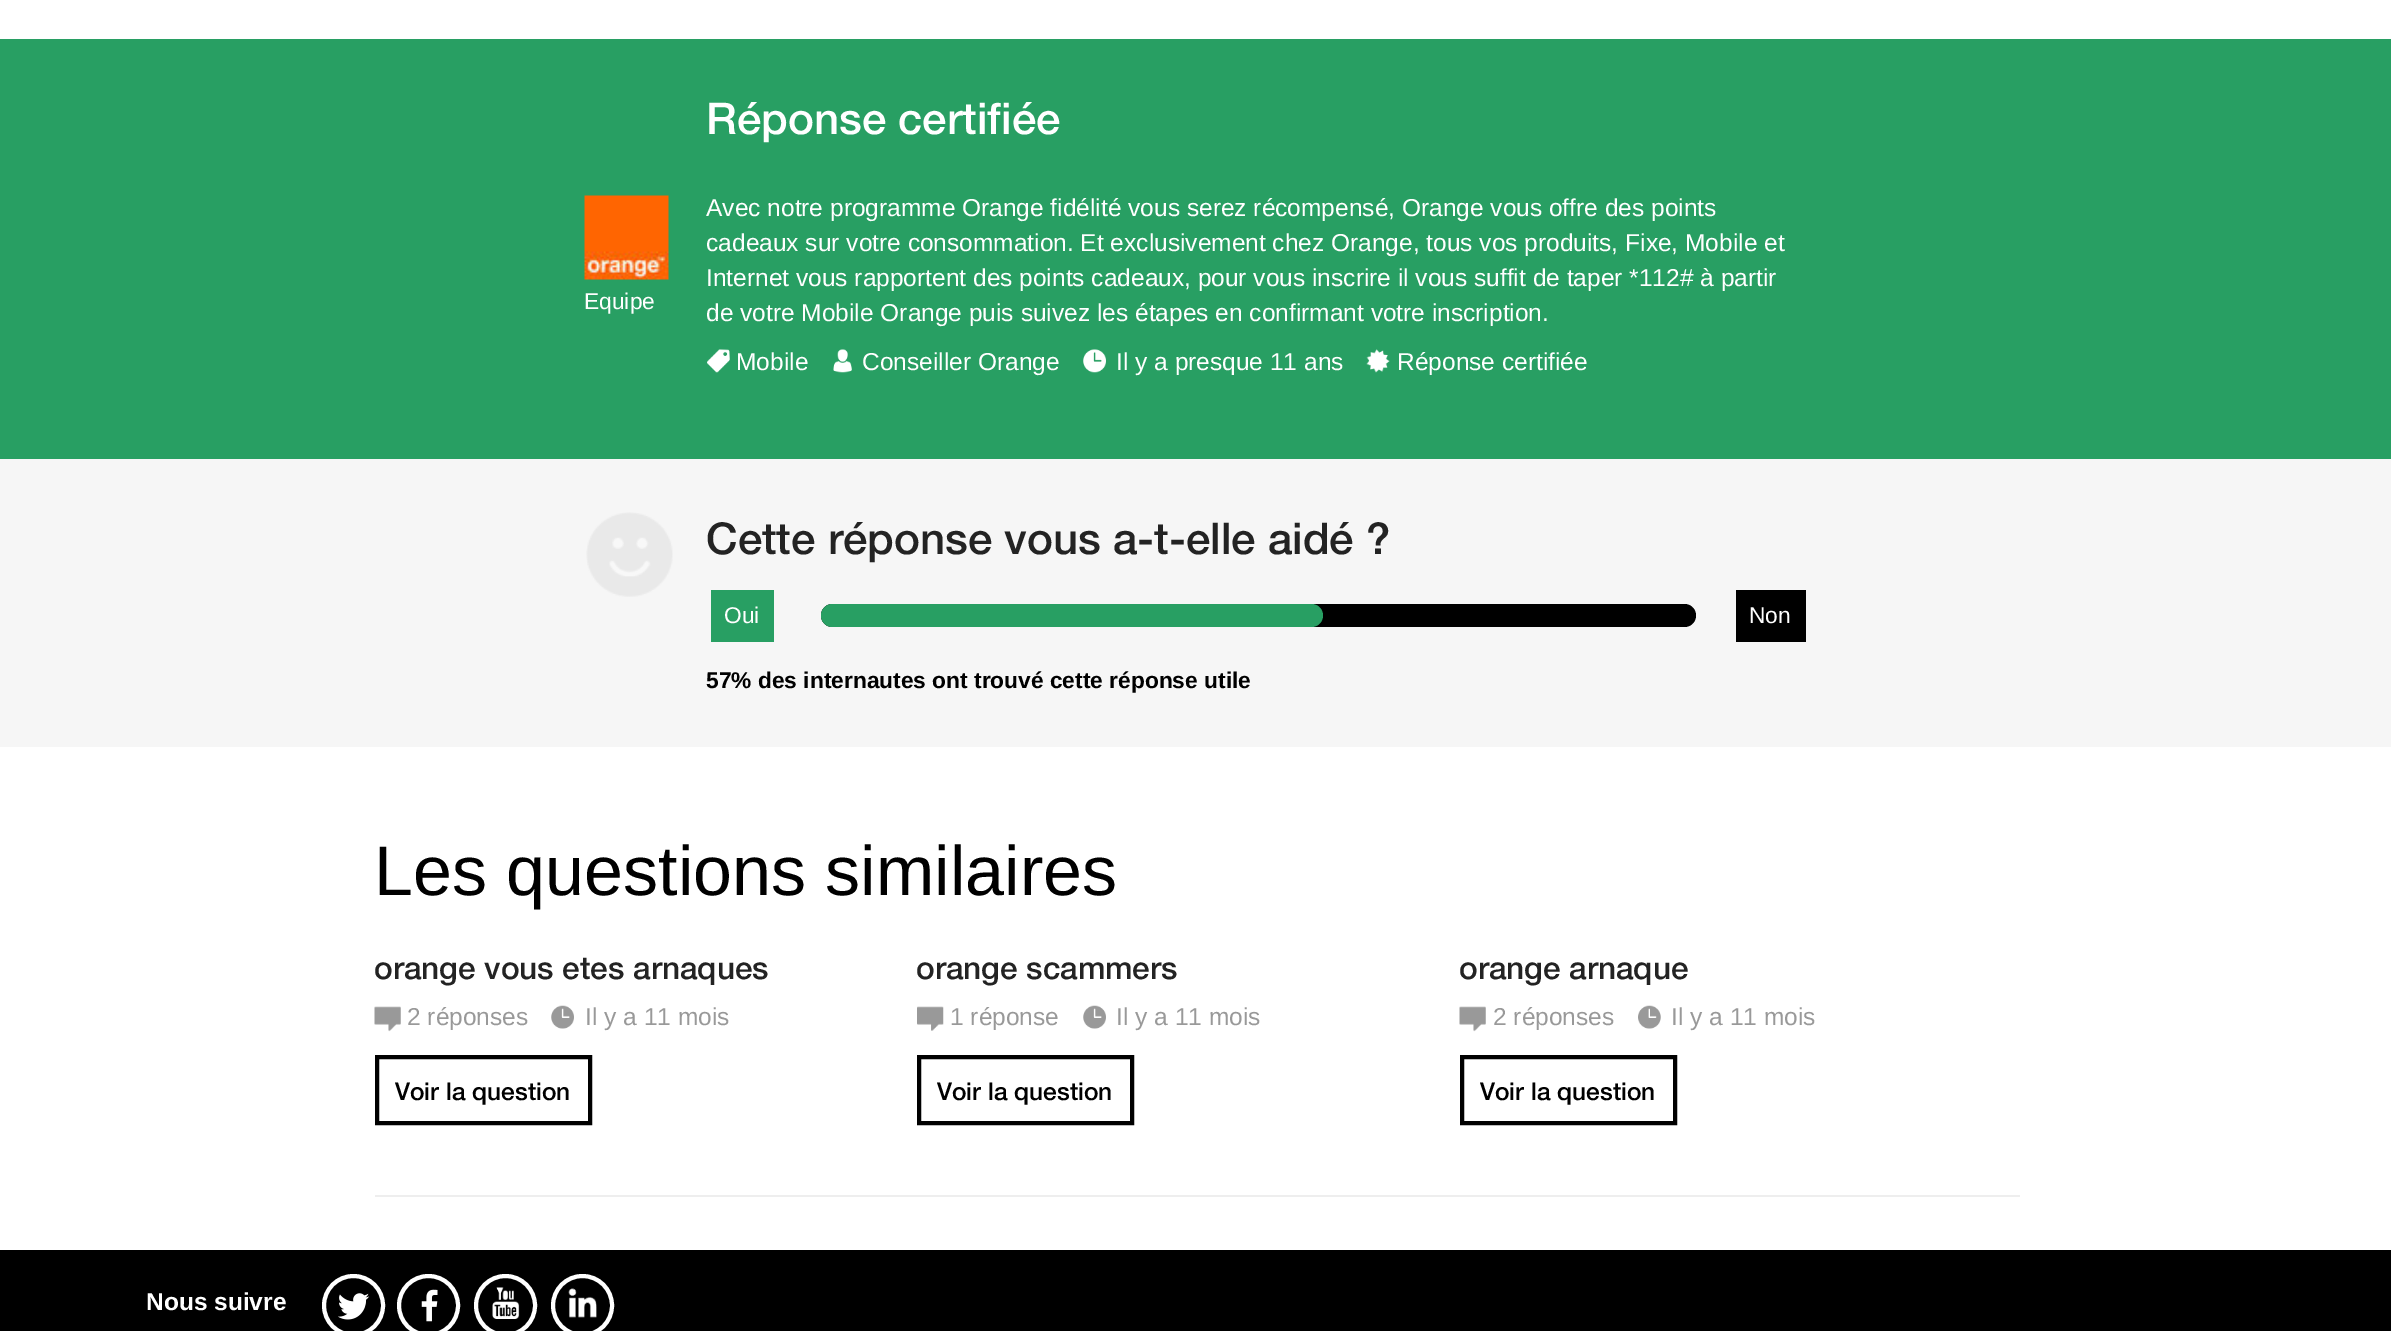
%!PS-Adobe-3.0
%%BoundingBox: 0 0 2391 1331
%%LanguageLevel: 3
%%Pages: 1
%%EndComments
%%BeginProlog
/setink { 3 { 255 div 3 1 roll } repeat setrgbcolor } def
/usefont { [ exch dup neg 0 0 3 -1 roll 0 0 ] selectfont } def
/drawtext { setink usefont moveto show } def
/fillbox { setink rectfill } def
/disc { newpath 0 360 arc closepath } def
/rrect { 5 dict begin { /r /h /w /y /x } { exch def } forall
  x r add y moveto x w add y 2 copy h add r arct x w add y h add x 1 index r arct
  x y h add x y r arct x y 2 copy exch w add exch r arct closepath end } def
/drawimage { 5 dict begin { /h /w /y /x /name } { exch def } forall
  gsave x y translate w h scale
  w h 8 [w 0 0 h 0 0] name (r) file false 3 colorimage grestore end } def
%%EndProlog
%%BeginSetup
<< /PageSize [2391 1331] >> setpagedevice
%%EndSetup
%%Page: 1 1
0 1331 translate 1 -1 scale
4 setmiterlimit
0 0 2391 1331 255 255 255 fillbox
0 39 2391 420 40 159 99 fillbox
(Réponse certifiée) 706 134 /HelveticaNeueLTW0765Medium-Medium 43.75 255 255 255 drawtext
(assets/img1.rgb) 584 195 85 85 drawimage
(Equipe) 584 309 /LiberationSans-Regular 22.75 255 255 255 drawtext
(Avec notre programme Orange fidélité vous serez récompensé, Orange vous offre des points) 706 216 /LiberationSans-Regular 24.5 255 255 255 drawtext
(cadeaux sur votre consommation. Et exclusivement chez Orange, tous vos produits, Fixe, Mobile et) 706 251 /LiberationSans-Regular 24.5 255 255 255 drawtext
(Internet vous rapportent des points cadeaux, pour vous inscrire il vous suffit de taper *112# à partir) 706 286 /LiberationSans-Regular 24.5 255 255 255 drawtext
(de votre Mobile Orange puis suivez les étapes en confirmant votre inscription.) 706 321 /LiberationSans-Regular 24.5 255 255 255 drawtext
(assets/img2.rgb) 707 349 23 24 drawimage
(Mobile) 736 370 /LiberationSans-Regular 24.5 255 255 255 drawtext
(assets/img3.rgb) 833 349 19 24 drawimage
(Conseiller Orange) 862 370 /LiberationSans-Regular 24.5 255 255 255 drawtext
(assets/img4.rgb) 1083 349 23 24 drawimage
(Il y a presque 11 ans) 1116 370 /LiberationSans-Regular 24.5 255 255 255 drawtext
(assets/img5.rgb) 1366 349 24 24 drawimage
(Réponse certifiée) 1397 370 /LiberationSans-Regular 24.5 255 255 255 drawtext
0 459 2391 288 246 246 246 fillbox
(assets/img6.rgb) 586 512 87 85 drawimage
(Cette réponse vous a-t-elle aidé ?) 706 554 /HelveticaNeueLTW0765Medium-Medium 43.75 35 35 35 drawtext
711 590 63 52 40 159 99 fillbox
(Oui) 724 623 /LiberationSans-Regular 22.75 255 255 255 drawtext
0 0 0 setink
821 604 875 23 11.5 rrect fill
40 159 99 setink
821 604 493 23 11.5 rrect fill
830 604 493 23 11.5 rrect fill
1736 590 70 52 0 0 0 fillbox
(Non) 1749 623 /LiberationSans-Regular 22.75 255 255 255 drawtext
(57% des internautes ont trouvé cette réponse utile) 706 688 /LiberationSans-Bold 22.75 0 0 0 drawtext
375 1195 1645 2 238 238 238 fillbox
(Les questions similaires) 374 895 /LiberationSans-Regular 70 0 0 0 drawtext
(orange vous etes arnaques) 374 979 /HelveticaNeueLTW0765Medium-Medium 31.5 35 35 35 drawtext
(assets/img7.rgb) 374 1006 27 26 drawimage
(2 réponses) 407 1025 /LiberationSans-Regular 24.5 153 153 153 drawtext
(assets/img8.rgb) 551 1005 23 24 drawimage
(Il y a 11 mois) 585 1025 /LiberationSans-Regular 24.5 153 153 153 drawtext
0 0 0 setink
4 setlinewidth
377 1057 213 66 rectstroke
(Voir la question) 395 1100 /HelveticaNeueLTW0765Medium-Medium 24.5 0 0 0 drawtext
(orange scammers) 916 979 /HelveticaNeueLTW0765Medium-Medium 31.5 35 35 35 drawtext
(assets/img9.rgb) 917 1006 27 25 drawimage
(1 réponse) 950 1025 /LiberationSans-Regular 24.5 153 153 153 drawtext
(assets/img8.rgb) 1083 1005 23 24 drawimage
(Il y a 11 mois) 1116 1025 /LiberationSans-Regular 24.5 153 153 153 drawtext
0 0 0 setink
919 1057 213 66 rectstroke
(Voir la question) 937 1100 /HelveticaNeueLTW0765Medium-Medium 24.5 0 0 0 drawtext
(orange arnaque) 1459 979 /HelveticaNeueLTW0765Medium-Medium 31.5 35 35 35 drawtext
(assets/img7.rgb) 1459 1006 27 26 drawimage
(2 réponses) 1493 1025 /LiberationSans-Regular 24.5 153 153 153 drawtext
(assets/img10.rgb) 1638 1005 23 24 drawimage
(Il y a 11 mois) 1671 1025 /LiberationSans-Regular 24.5 153 153 153 drawtext
0 0 0 setink
1462 1057 213 66 rectstroke
(Voir la question) 1480 1100 /HelveticaNeueLTW0765Medium-Medium 24.5 0 0 0 drawtext
0 1250 2391 81 0 0 0 fillbox
(Nous suivre) 146 1310 /LiberationSans-Bold 24.5 255 255 255 drawtext
353.5 1305.5 29.5 disc stroke
(assets/img11.rgb) 338 1293 32 27 drawimage
428.5 1305.5 29.5 disc stroke
(assets/img12.rgb) 421 1289 17 33 drawimage
505.5 1305.5 29.5 disc stroke
(assets/img13.rgb) 492 1287 28 32 drawimage
582.5 1305.5 29.5 disc stroke
(assets/img14.rgb) 568 1288 29 30 drawimage
showpage
%%EOF
